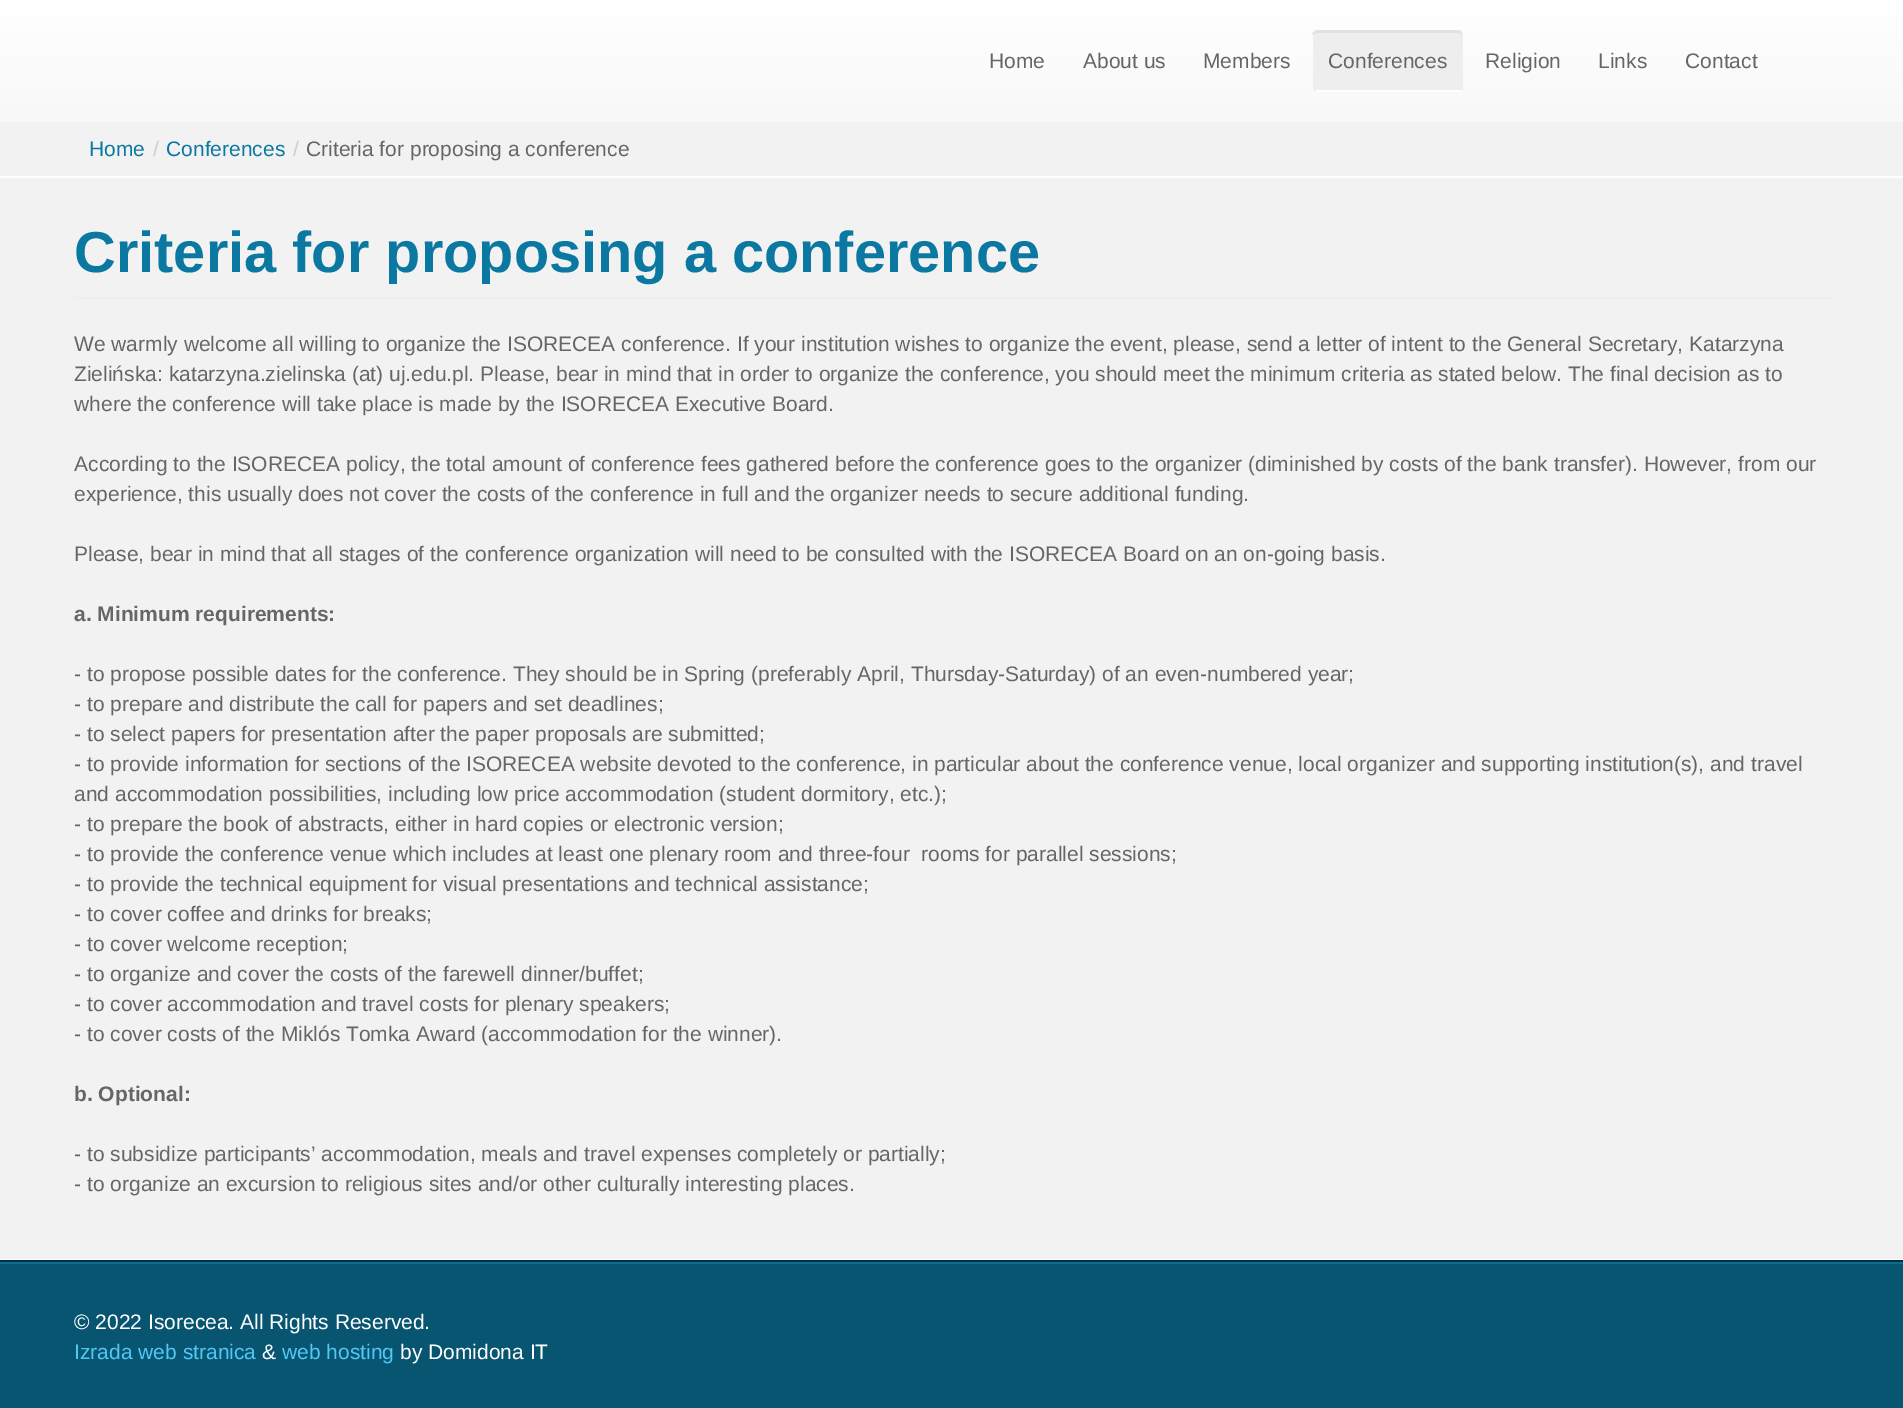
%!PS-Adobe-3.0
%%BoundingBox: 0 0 1903 1408
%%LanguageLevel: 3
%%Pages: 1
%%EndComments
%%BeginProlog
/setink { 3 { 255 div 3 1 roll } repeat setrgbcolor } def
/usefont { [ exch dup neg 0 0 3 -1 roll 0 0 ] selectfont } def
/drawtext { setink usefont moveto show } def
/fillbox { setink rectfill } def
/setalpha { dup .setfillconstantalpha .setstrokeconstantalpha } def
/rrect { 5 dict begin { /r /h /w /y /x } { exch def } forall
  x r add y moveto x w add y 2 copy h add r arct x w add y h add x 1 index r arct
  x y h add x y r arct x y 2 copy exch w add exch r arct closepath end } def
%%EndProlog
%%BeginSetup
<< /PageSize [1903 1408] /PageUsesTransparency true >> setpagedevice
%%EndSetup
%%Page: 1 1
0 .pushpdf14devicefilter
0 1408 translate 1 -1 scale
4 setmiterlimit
0 0 1903 1408 242 242 242 fillbox
gsave 0 0 moveto 1903 0 lineto 1903 122 lineto 0 122 lineto closepath clip newpath
<< /ShadingType 2 /ColorSpace /DeviceRGB /Coords [952 0 952 122] /Extend [true true] /Function << /FunctionType 2 /Domain [0 1] /C0 [1 1 1] /C1 [0.973 0.973 0.973] /N 1 >> >> shfill grestore
(Home) 989 68 /LiberationSans-Regular 21 102 102 102 drawtext
(About us) 1083 68 /LiberationSans-Regular 21 102 102 102 drawtext
(Members) 1203 68 /LiberationSans-Regular 21 102 102 102 drawtext
238 238 238 setink
1313 30 150 62 5 rrect fill
0.05 setalpha
0 0 0 setink
1317 33 moveto 1458 33 lineto 1460 33 1462 35 1462 38 curveto 1462 88 lineto 1462 87 lineto 1462 34 lineto 1462 32 1460 30 1458 30 curveto 1317 30 lineto 1315 30 1312 32 1312 34 curveto 1312 36 lineto 1313 34 1316 33 1317 33 curveto closepath fill
1 setalpha
1316 90 145 2 255 255 255 fillbox
(Conferences) 1328 68 /LiberationSans-Regular 21 102 102 102 drawtext
(Religion) 1485 68 /LiberationSans-Regular 21 102 102 102 drawtext
(Links) 1598 68 /LiberationSans-Regular 21 102 102 102 drawtext
(Contact) 1685 68 /LiberationSans-Regular 21 102 102 102 drawtext
(Home) 89 156 /LiberationSans-Regular 21 11 120 161 drawtext
(/) 153 156 /LiberationSans-Regular 21 204 204 204 drawtext
(Conferences) 166 156 /LiberationSans-Regular 21 11 120 161 drawtext
(/) 293 156 /LiberationSans-Regular 21 204 204 204 drawtext
(Criteria for proposing a conference) 306 156 /LiberationSans-Regular 21 102 102 102 drawtext
0 176 1903 2 255 255 255 fillbox
0 1259 1903 1 255 255 255 fillbox
75 297 1755 2 238 238 238 fillbox
(Criteria for proposing a conference) 74 272 /LiberationSans-Bold 57.75 11 120 161 drawtext
(We warmly welcome all willing to organize the ISORECEA conference. If your institution wishes to organize the event, please, send a letter of intent to the General Secretary, Katarzyna) 74 351 /LiberationSans-Regular 21 102 102 102 drawtext
(Zielińska: katarzyna.zielinska \(at\) uj.edu.pl. Please, bear in mind that in order to organize the conference, you should meet the minimum criteria as stated below. The final decision as to) 74 381 /LiberationSans-Regular 21 102 102 102 drawtext
(where the conference will take place is made by the ISORECEA Executive Board.) 74 411 /LiberationSans-Regular 21 102 102 102 drawtext
(According to the ISORECEA policy, the total amount of conference fees gathered before the conference goes to the organizer \(diminished by costs of the bank transfer\). However, from our) 74 471 /LiberationSans-Regular 21 102 102 102 drawtext
(experience, this usually does not cover the costs of the conference in full and the organizer needs to secure additional funding.) 74 501 /LiberationSans-Regular 21 102 102 102 drawtext
(Please, bear in mind that all stages of the conference organization will need to be consulted with the ISORECEA Board on an on-going basis.) 74 561 /LiberationSans-Regular 21 102 102 102 drawtext
(a. Minimum requirements:) 74 621 /LiberationSans-Bold 21 102 102 102 drawtext
(- to propose possible dates for the conference. They should be in Spring \(preferably April, Thursday-Saturday\) of an even-numbered year;) 74 681 /LiberationSans-Regular 21 102 102 102 drawtext
(- to prepare and distribute the call for papers and set deadlines;) 74 711 /LiberationSans-Regular 21 102 102 102 drawtext
(- to select papers for presentation after the paper proposals are submitted;) 74 741 /LiberationSans-Regular 21 102 102 102 drawtext
(- to provide information for sections of the ISORECEA website devoted to the conference, in particular about the conference venue, local organizer and supporting institution\(s\), and travel) 74 771 /LiberationSans-Regular 21 102 102 102 drawtext
(and accommodation possibilities, including low price accommodation \(student dormitory, etc.\);) 74 801 /LiberationSans-Regular 21 102 102 102 drawtext
(- to prepare the book of abstracts, either in hard copies or electronic version;) 74 831 /LiberationSans-Regular 21 102 102 102 drawtext
(- to provide the conference venue which includes at least one plenary room and three-four  rooms for parallel sessions;) 74 861 /LiberationSans-Regular 21 102 102 102 drawtext
(- to provide the technical equipment for visual presentations and technical assistance;) 74 891 /LiberationSans-Regular 21 102 102 102 drawtext
(- to cover coffee and drinks for breaks;) 74 921 /LiberationSans-Regular 21 102 102 102 drawtext
(- to cover welcome reception;) 74 951 /LiberationSans-Regular 21 102 102 102 drawtext
(- to organize and cover the costs of the farewell dinner/buffet;) 74 981 /LiberationSans-Regular 21 102 102 102 drawtext
(- to cover accommodation and travel costs for plenary speakers;) 74 1011 /LiberationSans-Regular 21 102 102 102 drawtext
(- to cover costs of the Miklós Tomka Award \(accommodation for the winner\).) 74 1041 /LiberationSans-Regular 21 102 102 102 drawtext
(b. Optional:) 74 1101 /LiberationSans-Bold 21 102 102 102 drawtext
(- to subsidize participants’ accommodation, meals and travel expenses completely or partially;) 74 1161 /LiberationSans-Regular 21 102 102 102 drawtext
(- to organize an excursion to religious sites and/or other culturally interesting places.) 74 1191 /LiberationSans-Regular 21 102 102 102 drawtext
0 1264 1903 144 8 85 113 fillbox
0 1260 1903 2 4 49 66 fillbox
0 1262 1903 2 10 110 147 fillbox
(© 2022 Isorecea. All Rights Reserved.) 74 1329 /LiberationSans-Regular 21 255 255 255 drawtext
(Izrada web stranica) 74 1359 /LiberationSans-Regular 21 82 199 243 drawtext
(&) 262 1359 /LiberationSans-Regular 21 255 255 255 drawtext
(web hosting) 282 1359 /LiberationSans-Regular 21 82 199 243 drawtext
(by Domidona IT) 400 1359 /LiberationSans-Regular 21 255 255 255 drawtext
.poppdf14devicefilter showpage
%%EOF
